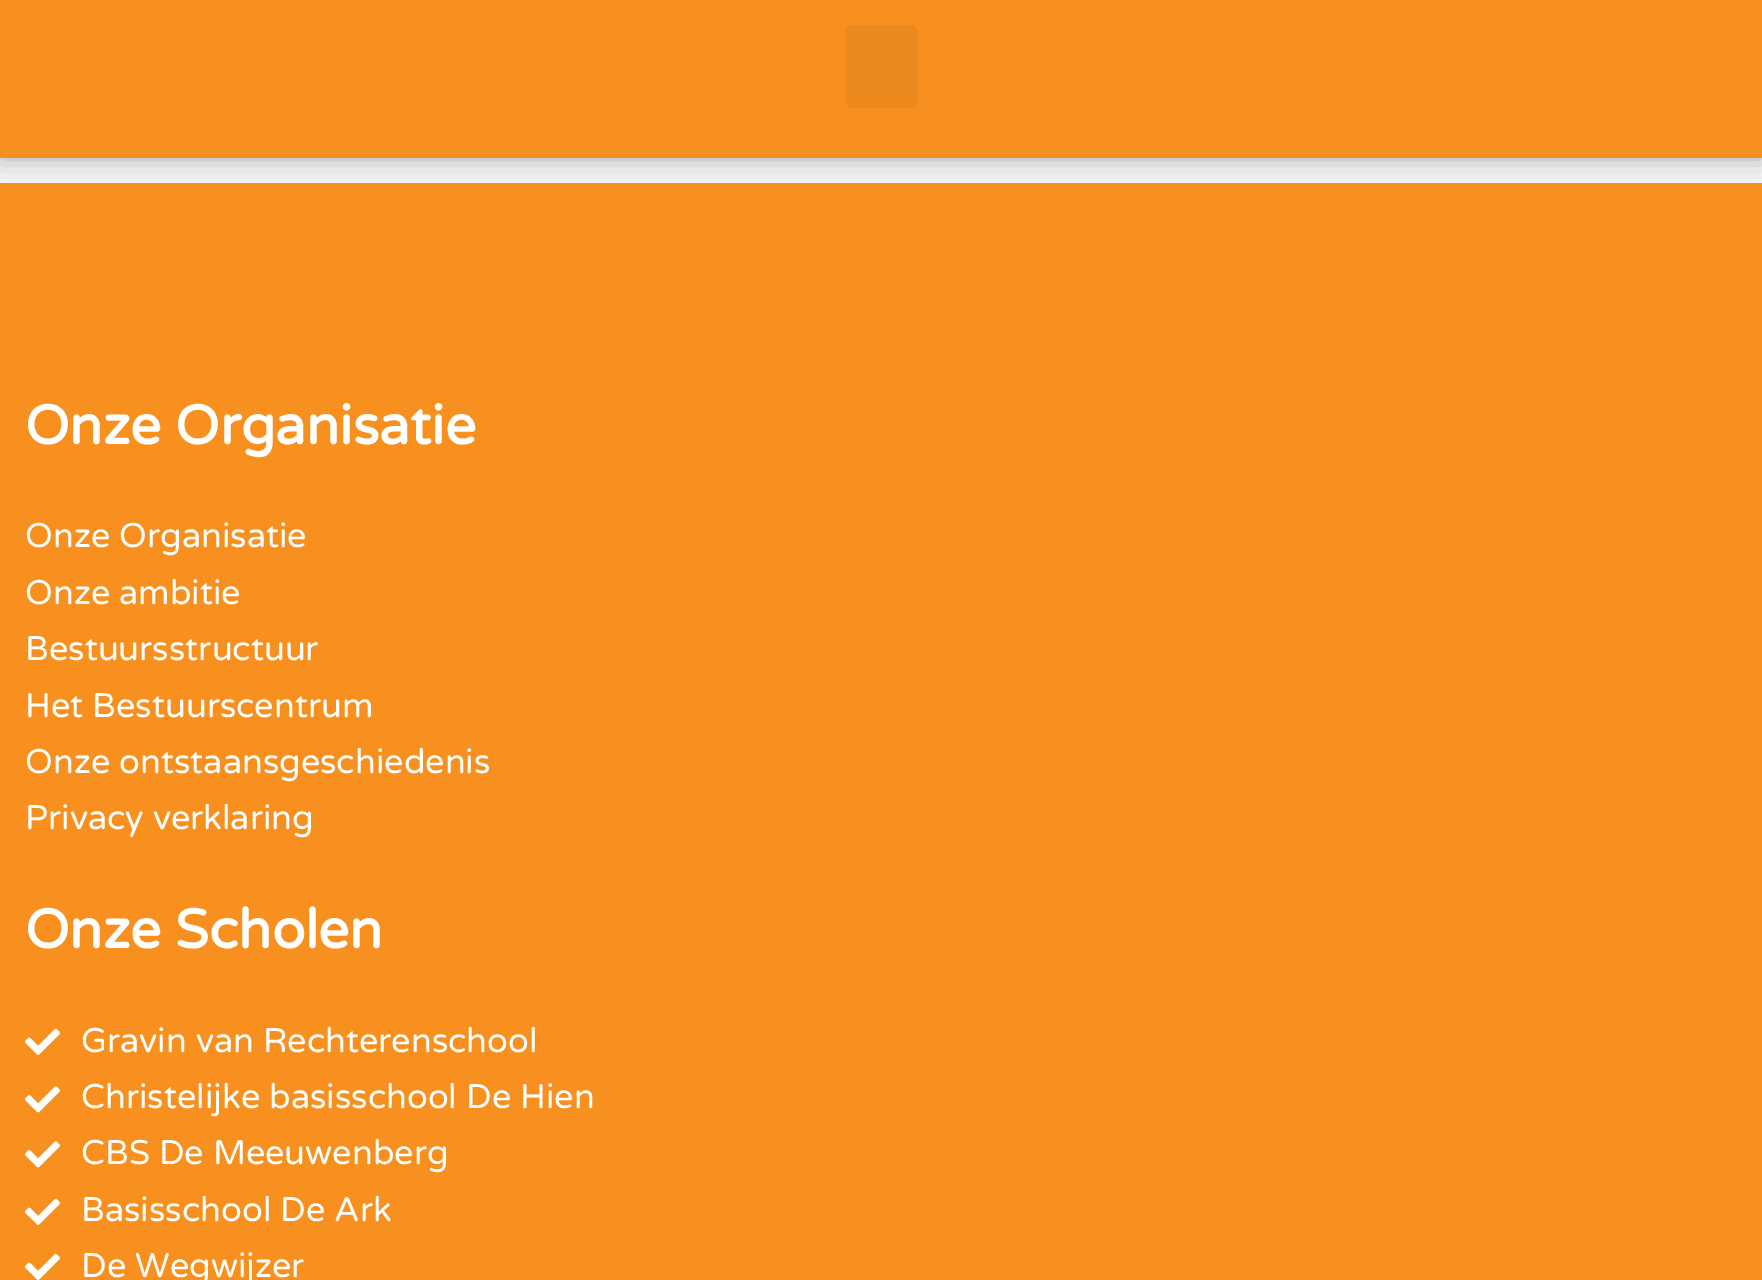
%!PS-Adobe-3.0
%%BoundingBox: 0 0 1762 1280
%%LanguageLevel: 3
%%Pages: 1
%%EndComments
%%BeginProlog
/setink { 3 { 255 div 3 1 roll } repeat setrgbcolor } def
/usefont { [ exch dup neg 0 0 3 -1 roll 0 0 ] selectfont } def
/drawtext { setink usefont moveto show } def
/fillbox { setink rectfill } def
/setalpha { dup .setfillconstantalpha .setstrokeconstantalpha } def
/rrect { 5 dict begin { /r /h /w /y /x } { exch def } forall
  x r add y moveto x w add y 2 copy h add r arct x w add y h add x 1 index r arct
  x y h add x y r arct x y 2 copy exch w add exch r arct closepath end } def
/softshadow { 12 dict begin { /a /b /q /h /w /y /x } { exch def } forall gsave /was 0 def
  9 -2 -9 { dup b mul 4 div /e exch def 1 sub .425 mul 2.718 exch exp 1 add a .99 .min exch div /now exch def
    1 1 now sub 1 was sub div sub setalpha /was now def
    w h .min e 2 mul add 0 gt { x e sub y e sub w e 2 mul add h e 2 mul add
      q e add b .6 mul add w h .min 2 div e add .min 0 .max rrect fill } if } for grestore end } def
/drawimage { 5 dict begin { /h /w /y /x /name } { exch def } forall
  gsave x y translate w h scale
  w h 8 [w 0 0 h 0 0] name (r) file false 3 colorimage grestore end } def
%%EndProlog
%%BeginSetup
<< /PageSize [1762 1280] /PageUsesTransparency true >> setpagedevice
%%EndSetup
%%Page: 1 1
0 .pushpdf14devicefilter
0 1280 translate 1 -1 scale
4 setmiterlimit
0 0 1762 1280 245 245 245 fillbox
0 183 1762 1097 247 144 30 fillbox
164 164 164 setink
0 0 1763 158 0 12.5 1 softshadow
0 0 1762 158 247 144 30 fillbox
235 137 29 setink
845 25 73 83 8 rrect fill
(Onze Organisatie) 25 444 /VarelaRound-Bold 54.75 255 255 255 drawtext
(Onze Organisatie) 25 547 /VarelaRound-Regular 34.25 255 255 255 drawtext
(Onze ambitie) 25 604 /VarelaRound-Regular 34.25 255 255 255 drawtext
(Bestuursstructuur) 25 660 /VarelaRound-Regular 34.25 255 255 255 drawtext
(Het Bestuurscentrum) 25 717 /VarelaRound-Regular 34.25 255 255 255 drawtext
(Onze ontstaansgeschiedenis) 25 773 /VarelaRound-Regular 34.25 255 255 255 drawtext
(Privacy verklaring) 25 829 /VarelaRound-Regular 34.25 255 255 255 drawtext
(Onze Scholen) 25 948 /VarelaRound-Bold 54.75 255 255 255 drawtext
(assets/img1.rgb) 25 1028 35 27 drawimage
(Gravin van Rechterenschool) 81 1052 /VarelaRound-Regular 34.25 255 255 255 drawtext
(assets/img2.rgb) 25 1086 35 27 drawimage
(Christelijke basisschool De Hien) 81 1108 /VarelaRound-Regular 34.25 255 255 255 drawtext
(assets/img2.rgb) 25 1141 35 27 drawimage
(CBS De Meeuwenberg) 81 1164 /VarelaRound-Regular 34.25 255 255 255 drawtext
(assets/img1.rgb) 25 1198 35 27 drawimage
(Basisschool De Ark) 81 1221 /VarelaRound-Regular 34.25 255 255 255 drawtext
(assets/img1.rgb) 25 1253 35 27 drawimage
(De Wegwijzer) 81 1277 /VarelaRound-Regular 34.25 255 255 255 drawtext
.poppdf14devicefilter showpage
%%EOF
